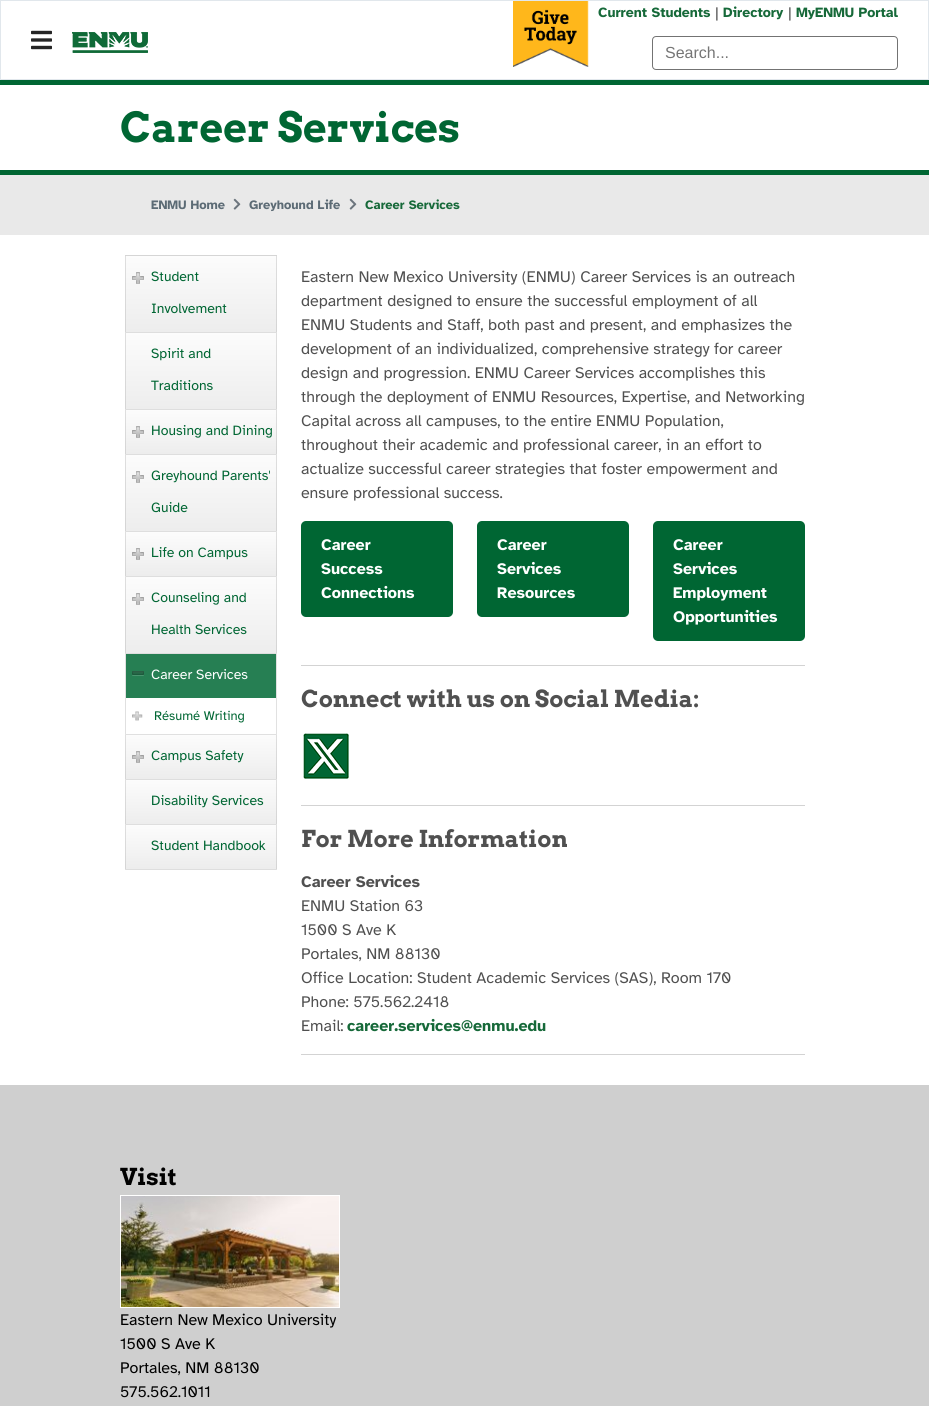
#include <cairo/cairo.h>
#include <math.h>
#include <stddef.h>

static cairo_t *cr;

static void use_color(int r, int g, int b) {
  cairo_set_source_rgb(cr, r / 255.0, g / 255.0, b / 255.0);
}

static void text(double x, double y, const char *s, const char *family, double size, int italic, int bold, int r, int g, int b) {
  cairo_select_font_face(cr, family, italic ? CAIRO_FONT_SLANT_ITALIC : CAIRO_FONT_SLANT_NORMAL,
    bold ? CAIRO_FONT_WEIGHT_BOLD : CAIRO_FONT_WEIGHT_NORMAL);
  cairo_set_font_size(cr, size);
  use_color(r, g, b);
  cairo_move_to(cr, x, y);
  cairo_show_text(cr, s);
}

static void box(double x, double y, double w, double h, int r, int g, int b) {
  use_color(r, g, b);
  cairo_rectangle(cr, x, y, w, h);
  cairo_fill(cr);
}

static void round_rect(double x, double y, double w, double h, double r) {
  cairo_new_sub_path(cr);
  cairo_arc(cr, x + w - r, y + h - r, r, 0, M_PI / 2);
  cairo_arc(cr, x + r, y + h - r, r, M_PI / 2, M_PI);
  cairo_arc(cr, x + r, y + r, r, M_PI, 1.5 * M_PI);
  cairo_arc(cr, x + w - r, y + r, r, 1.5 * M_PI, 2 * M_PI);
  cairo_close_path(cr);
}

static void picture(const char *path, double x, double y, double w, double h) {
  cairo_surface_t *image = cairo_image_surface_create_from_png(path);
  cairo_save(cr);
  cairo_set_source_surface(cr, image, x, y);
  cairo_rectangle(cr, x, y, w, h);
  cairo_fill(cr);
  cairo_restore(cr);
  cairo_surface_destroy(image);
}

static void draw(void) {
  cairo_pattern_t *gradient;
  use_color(255, 255, 255);
  cairo_paint(cr);
  cairo_rectangle(cr, 0.5, 0.5, 928, 79);
  use_color(225, 231, 236);
  cairo_set_line_width(cr, 1);
  cairo_stroke(cr);
  picture("img_01.png", 31, 30, 21, 20);
  picture("img_02.png", 72, 32, 76, 21);
  picture("img_03.png", 513, 1, 76, 66);
  round_rect(652.5, 36.5, 245, 33, 3.5);
  use_color(115, 115, 115);
  cairo_stroke(cr);
  box(0, 80, 929, 5, 0, 102, 51);
  box(0, 170, 929, 5, 0, 102, 51);
  box(0, 175, 929, 60, 233, 233, 233);
  picture("img_04.png", 233, 198, 8, 12);
  picture("img_04.png", 349, 198, 8, 12);
  gradient = cairo_pattern_create_linear(126, 256, 126, 180);
  cairo_pattern_add_color_stop_rgba(gradient, 0, 0.929, 0.929, 0.929, 1);
  cairo_pattern_add_color_stop_rgba(gradient, 1, 0.988, 0.988, 0.988, 1);
  cairo_set_source(cr, gradient);
  cairo_pattern_destroy(gradient);
  cairo_rectangle(cr, 125, 255, 152, 1);
  cairo_fill(cr);
  gradient = cairo_pattern_create_linear(126, 332, 126, 256);
  cairo_pattern_add_color_stop_rgba(gradient, 0, 0.929, 0.929, 0.929, 1);
  cairo_pattern_add_color_stop_rgba(gradient, 1, 0.988, 0.988, 0.988, 1);
  cairo_set_source(cr, gradient);
  cairo_pattern_destroy(gradient);
  cairo_rectangle(cr, 125, 256, 152, 76);
  cairo_fill(cr);
  gradient = cairo_pattern_create_linear(126, 408, 126, 332);
  cairo_pattern_add_color_stop_rgba(gradient, 0, 0.929, 0.929, 0.929, 1);
  cairo_pattern_add_color_stop_rgba(gradient, 1, 0.988, 0.988, 0.988, 1);
  cairo_set_source(cr, gradient);
  cairo_pattern_destroy(gradient);
  cairo_rectangle(cr, 125, 332, 152, 1);
  cairo_fill(cr);
  cairo_rectangle(cr, 125.5, 255.5, 151, 77);
  cairo_set_source_rgba(cr, 0.686, 0.686, 0.686, 0.38);
  cairo_stroke(cr);
  picture("img_05.png", 132, 272, 12, 12);
  gradient = cairo_pattern_create_linear(126, 409, 126, 333);
  cairo_pattern_add_color_stop_rgba(gradient, 0, 0.929, 0.929, 0.929, 1);
  cairo_pattern_add_color_stop_rgba(gradient, 1, 0.988, 0.988, 0.988, 1);
  cairo_set_source(cr, gradient);
  cairo_pattern_destroy(gradient);
  cairo_rectangle(cr, 125, 333, 152, 76);
  cairo_fill(cr);
  gradient = cairo_pattern_create_linear(126, 485, 126, 409);
  cairo_pattern_add_color_stop_rgba(gradient, 0, 0.929, 0.929, 0.929, 1);
  cairo_pattern_add_color_stop_rgba(gradient, 1, 0.988, 0.988, 0.988, 1);
  cairo_set_source(cr, gradient);
  cairo_pattern_destroy(gradient);
  cairo_rectangle(cr, 125, 409, 152, 1);
  cairo_fill(cr);
  cairo_set_source_rgba(cr, 0.686, 0.686, 0.686, 0.38);
  cairo_new_path(cr);
  cairo_move_to(cr, 277, 333);
  cairo_line_to(cr, 277, 410);
  cairo_line_to(cr, 276, 409);
  cairo_line_to(cr, 276, 333);
  cairo_close_path(cr);
  cairo_fill(cr);
  cairo_new_path(cr);
  cairo_move_to(cr, 277, 410);
  cairo_line_to(cr, 125, 410);
  cairo_line_to(cr, 126, 409);
  cairo_line_to(cr, 276, 409);
  cairo_close_path(cr);
  cairo_fill(cr);
  cairo_new_path(cr);
  cairo_move_to(cr, 125, 410);
  cairo_line_to(cr, 125, 333);
  cairo_line_to(cr, 126, 333);
  cairo_line_to(cr, 126, 409);
  cairo_close_path(cr);
  cairo_fill(cr);
  gradient = cairo_pattern_create_linear(126, 454, 126, 410);
  cairo_pattern_add_color_stop_rgba(gradient, 0, 0.929, 0.929, 0.929, 1);
  cairo_pattern_add_color_stop_rgba(gradient, 1, 0.988, 0.988, 0.988, 1);
  cairo_set_source(cr, gradient);
  cairo_pattern_destroy(gradient);
  cairo_rectangle(cr, 125, 410, 152, 44);
  cairo_fill(cr);
  gradient = cairo_pattern_create_linear(126, 498, 126, 454);
  cairo_pattern_add_color_stop_rgba(gradient, 0, 0.929, 0.929, 0.929, 1);
  cairo_pattern_add_color_stop_rgba(gradient, 1, 0.988, 0.988, 0.988, 1);
  cairo_set_source(cr, gradient);
  cairo_pattern_destroy(gradient);
  cairo_rectangle(cr, 125, 454, 152, 1);
  cairo_fill(cr);
  cairo_set_source_rgba(cr, 0.686, 0.686, 0.686, 0.38);
  cairo_new_path(cr);
  cairo_move_to(cr, 277, 410);
  cairo_line_to(cr, 277, 455);
  cairo_line_to(cr, 276, 454);
  cairo_line_to(cr, 276, 410);
  cairo_close_path(cr);
  cairo_fill(cr);
  cairo_new_path(cr);
  cairo_move_to(cr, 277, 455);
  cairo_line_to(cr, 125, 455);
  cairo_line_to(cr, 126, 454);
  cairo_line_to(cr, 276, 454);
  cairo_close_path(cr);
  cairo_fill(cr);
  cairo_new_path(cr);
  cairo_move_to(cr, 125, 455);
  cairo_line_to(cr, 125, 410);
  cairo_line_to(cr, 126, 410);
  cairo_line_to(cr, 126, 454);
  cairo_close_path(cr);
  cairo_fill(cr);
  picture("img_06.png", 132, 426, 12, 12);
  gradient = cairo_pattern_create_linear(126, 531, 126, 455);
  cairo_pattern_add_color_stop_rgba(gradient, 0, 0.929, 0.929, 0.929, 1);
  cairo_pattern_add_color_stop_rgba(gradient, 1, 0.988, 0.988, 0.988, 1);
  cairo_set_source(cr, gradient);
  cairo_pattern_destroy(gradient);
  cairo_rectangle(cr, 125, 455, 152, 76);
  cairo_fill(cr);
  gradient = cairo_pattern_create_linear(126, 607, 126, 531);
  cairo_pattern_add_color_stop_rgba(gradient, 0, 0.929, 0.929, 0.929, 1);
  cairo_pattern_add_color_stop_rgba(gradient, 1, 0.988, 0.988, 0.988, 1);
  cairo_set_source(cr, gradient);
  cairo_pattern_destroy(gradient);
  cairo_rectangle(cr, 125, 531, 152, 1);
  cairo_fill(cr);
  cairo_set_source_rgba(cr, 0.686, 0.686, 0.686, 0.38);
  cairo_new_path(cr);
  cairo_move_to(cr, 277, 455);
  cairo_line_to(cr, 277, 532);
  cairo_line_to(cr, 276, 531);
  cairo_line_to(cr, 276, 455);
  cairo_close_path(cr);
  cairo_fill(cr);
  cairo_new_path(cr);
  cairo_move_to(cr, 277, 532);
  cairo_line_to(cr, 125, 532);
  cairo_line_to(cr, 126, 531);
  cairo_line_to(cr, 276, 531);
  cairo_close_path(cr);
  cairo_fill(cr);
  cairo_new_path(cr);
  cairo_move_to(cr, 125, 532);
  cairo_line_to(cr, 125, 455);
  cairo_line_to(cr, 126, 455);
  cairo_line_to(cr, 126, 531);
  cairo_close_path(cr);
  cairo_fill(cr);
  picture("img_05.png", 132, 471, 12, 12);
  gradient = cairo_pattern_create_linear(126, 576, 126, 532);
  cairo_pattern_add_color_stop_rgba(gradient, 0, 0.929, 0.929, 0.929, 1);
  cairo_pattern_add_color_stop_rgba(gradient, 1, 0.988, 0.988, 0.988, 1);
  cairo_set_source(cr, gradient);
  cairo_pattern_destroy(gradient);
  cairo_rectangle(cr, 125, 532, 152, 44);
  cairo_fill(cr);
  gradient = cairo_pattern_create_linear(126, 620, 126, 576);
  cairo_pattern_add_color_stop_rgba(gradient, 0, 0.929, 0.929, 0.929, 1);
  cairo_pattern_add_color_stop_rgba(gradient, 1, 0.988, 0.988, 0.988, 1);
  cairo_set_source(cr, gradient);
  cairo_pattern_destroy(gradient);
  cairo_rectangle(cr, 125, 576, 152, 1);
  cairo_fill(cr);
  cairo_set_source_rgba(cr, 0.686, 0.686, 0.686, 0.38);
  cairo_new_path(cr);
  cairo_move_to(cr, 277, 532);
  cairo_line_to(cr, 277, 577);
  cairo_line_to(cr, 276, 576);
  cairo_line_to(cr, 276, 532);
  cairo_close_path(cr);
  cairo_fill(cr);
  cairo_new_path(cr);
  cairo_move_to(cr, 277, 577);
  cairo_line_to(cr, 125, 577);
  cairo_line_to(cr, 126, 576);
  cairo_line_to(cr, 276, 576);
  cairo_close_path(cr);
  cairo_fill(cr);
  cairo_new_path(cr);
  cairo_move_to(cr, 125, 577);
  cairo_line_to(cr, 125, 532);
  cairo_line_to(cr, 126, 532);
  cairo_line_to(cr, 126, 576);
  cairo_close_path(cr);
  cairo_fill(cr);
  picture("img_06.png", 132, 548, 12, 12);
  gradient = cairo_pattern_create_linear(126, 653, 126, 577);
  cairo_pattern_add_color_stop_rgba(gradient, 0, 0.929, 0.929, 0.929, 1);
  cairo_pattern_add_color_stop_rgba(gradient, 1, 0.988, 0.988, 0.988, 1);
  cairo_set_source(cr, gradient);
  cairo_pattern_destroy(gradient);
  cairo_rectangle(cr, 125, 577, 152, 76);
  cairo_fill(cr);
  gradient = cairo_pattern_create_linear(126, 729, 126, 653);
  cairo_pattern_add_color_stop_rgba(gradient, 0, 0.929, 0.929, 0.929, 1);
  cairo_pattern_add_color_stop_rgba(gradient, 1, 0.988, 0.988, 0.988, 1);
  cairo_set_source(cr, gradient);
  cairo_pattern_destroy(gradient);
  cairo_rectangle(cr, 125, 653, 152, 1);
  cairo_fill(cr);
  cairo_set_source_rgba(cr, 0.686, 0.686, 0.686, 0.38);
  cairo_new_path(cr);
  cairo_move_to(cr, 277, 577);
  cairo_line_to(cr, 277, 654);
  cairo_line_to(cr, 276, 653);
  cairo_line_to(cr, 276, 577);
  cairo_close_path(cr);
  cairo_fill(cr);
  cairo_new_path(cr);
  cairo_move_to(cr, 277, 654);
  cairo_line_to(cr, 125, 654);
  cairo_line_to(cr, 126, 653);
  cairo_line_to(cr, 276, 653);
  cairo_close_path(cr);
  cairo_fill(cr);
  cairo_new_path(cr);
  cairo_move_to(cr, 125, 654);
  cairo_line_to(cr, 125, 577);
  cairo_line_to(cr, 126, 577);
  cairo_line_to(cr, 126, 653);
  cairo_close_path(cr);
  cairo_fill(cr);
  picture("img_05.png", 132, 593, 12, 12);
  box(126, 654, 150, 44, 38, 127, 83);
  use_color(225, 225, 225);
  cairo_new_path(cr);
  cairo_move_to(cr, 277, 654);
  cairo_line_to(cr, 277, 735);
  cairo_line_to(cr, 276, 734);
  cairo_line_to(cr, 276, 654);
  cairo_close_path(cr);
  cairo_fill(cr);
  cairo_set_source_rgba(cr, 0.686, 0.686, 0.686, 0.38);
  cairo_new_path(cr);
  cairo_move_to(cr, 277, 735);
  cairo_line_to(cr, 125, 735);
  cairo_line_to(cr, 126, 734);
  cairo_line_to(cr, 276, 734);
  cairo_close_path(cr);
  cairo_fill(cr);
  cairo_new_path(cr);
  cairo_move_to(cr, 125, 735);
  cairo_line_to(cr, 125, 654);
  cairo_line_to(cr, 126, 654);
  cairo_line_to(cr, 126, 734);
  cairo_close_path(cr);
  cairo_fill(cr);
  picture("img_07.png", 132, 671, 12, 5);
  picture("img_08.png", 132, 711, 11, 10);
  gradient = cairo_pattern_create_linear(126, 779, 126, 735);
  cairo_pattern_add_color_stop_rgba(gradient, 0, 0.929, 0.929, 0.929, 1);
  cairo_pattern_add_color_stop_rgba(gradient, 1, 0.988, 0.988, 0.988, 1);
  cairo_set_source(cr, gradient);
  cairo_pattern_destroy(gradient);
  cairo_rectangle(cr, 125, 735, 152, 44);
  cairo_fill(cr);
  gradient = cairo_pattern_create_linear(126, 823, 126, 779);
  cairo_pattern_add_color_stop_rgba(gradient, 0, 0.929, 0.929, 0.929, 1);
  cairo_pattern_add_color_stop_rgba(gradient, 1, 0.988, 0.988, 0.988, 1);
  cairo_set_source(cr, gradient);
  cairo_pattern_destroy(gradient);
  cairo_rectangle(cr, 125, 779, 152, 1);
  cairo_fill(cr);
  cairo_set_source_rgba(cr, 0.686, 0.686, 0.686, 0.38);
  cairo_new_path(cr);
  cairo_move_to(cr, 277, 735);
  cairo_line_to(cr, 277, 780);
  cairo_line_to(cr, 276, 779);
  cairo_line_to(cr, 276, 735);
  cairo_close_path(cr);
  cairo_fill(cr);
  cairo_new_path(cr);
  cairo_move_to(cr, 277, 780);
  cairo_line_to(cr, 125, 780);
  cairo_line_to(cr, 126, 779);
  cairo_line_to(cr, 276, 779);
  cairo_close_path(cr);
  cairo_fill(cr);
  cairo_new_path(cr);
  cairo_move_to(cr, 125, 780);
  cairo_line_to(cr, 125, 735);
  cairo_line_to(cr, 126, 735);
  cairo_line_to(cr, 126, 779);
  cairo_close_path(cr);
  cairo_fill(cr);
  picture("img_06.png", 132, 751, 12, 12);
  gradient = cairo_pattern_create_linear(126, 824, 126, 780);
  cairo_pattern_add_color_stop_rgba(gradient, 0, 0.929, 0.929, 0.929, 1);
  cairo_pattern_add_color_stop_rgba(gradient, 1, 0.988, 0.988, 0.988, 1);
  cairo_set_source(cr, gradient);
  cairo_pattern_destroy(gradient);
  cairo_rectangle(cr, 125, 780, 152, 44);
  cairo_fill(cr);
  gradient = cairo_pattern_create_linear(126, 868, 126, 824);
  cairo_pattern_add_color_stop_rgba(gradient, 0, 0.929, 0.929, 0.929, 1);
  cairo_pattern_add_color_stop_rgba(gradient, 1, 0.988, 0.988, 0.988, 1);
  cairo_set_source(cr, gradient);
  cairo_pattern_destroy(gradient);
  cairo_rectangle(cr, 125, 824, 152, 1);
  cairo_fill(cr);
  cairo_set_source_rgba(cr, 0.686, 0.686, 0.686, 0.38);
  cairo_new_path(cr);
  cairo_move_to(cr, 277, 780);
  cairo_line_to(cr, 277, 825);
  cairo_line_to(cr, 276, 824);
  cairo_line_to(cr, 276, 780);
  cairo_close_path(cr);
  cairo_fill(cr);
  cairo_new_path(cr);
  cairo_move_to(cr, 277, 825);
  cairo_line_to(cr, 125, 825);
  cairo_line_to(cr, 126, 824);
  cairo_line_to(cr, 276, 824);
  cairo_close_path(cr);
  cairo_fill(cr);
  cairo_new_path(cr);
  cairo_move_to(cr, 125, 825);
  cairo_line_to(cr, 125, 780);
  cairo_line_to(cr, 126, 780);
  cairo_line_to(cr, 126, 824);
  cairo_close_path(cr);
  cairo_fill(cr);
  gradient = cairo_pattern_create_linear(126, 869, 126, 825);
  cairo_pattern_add_color_stop_rgba(gradient, 0, 0.929, 0.929, 0.929, 1);
  cairo_pattern_add_color_stop_rgba(gradient, 1, 0.988, 0.988, 0.988, 1);
  cairo_set_source(cr, gradient);
  cairo_pattern_destroy(gradient);
  cairo_rectangle(cr, 125, 825, 152, 44);
  cairo_fill(cr);
  gradient = cairo_pattern_create_linear(126, 913, 126, 869);
  cairo_pattern_add_color_stop_rgba(gradient, 0, 0.929, 0.929, 0.929, 1);
  cairo_pattern_add_color_stop_rgba(gradient, 1, 0.988, 0.988, 0.988, 1);
  cairo_set_source(cr, gradient);
  cairo_pattern_destroy(gradient);
  cairo_rectangle(cr, 125, 869, 152, 1);
  cairo_fill(cr);
  cairo_set_source_rgba(cr, 0.686, 0.686, 0.686, 0.38);
  cairo_new_path(cr);
  cairo_move_to(cr, 277, 825);
  cairo_line_to(cr, 277, 870);
  cairo_line_to(cr, 276, 869);
  cairo_line_to(cr, 276, 825);
  cairo_close_path(cr);
  cairo_fill(cr);
  cairo_new_path(cr);
  cairo_move_to(cr, 277, 870);
  cairo_line_to(cr, 125, 870);
  cairo_line_to(cr, 126, 869);
  cairo_line_to(cr, 276, 869);
  cairo_close_path(cr);
  cairo_fill(cr);
  cairo_new_path(cr);
  cairo_move_to(cr, 125, 870);
  cairo_line_to(cr, 125, 825);
  cairo_line_to(cr, 126, 825);
  cairo_line_to(cr, 126, 869);
  cairo_close_path(cr);
  cairo_fill(cr);
  use_color(0, 102, 51);
  round_rect(301, 521, 152, 96, 5);
  cairo_fill(cr);
  round_rect(477, 521, 152, 96, 5);
  cairo_fill(cr);
  round_rect(653, 521, 152, 120, 5);
  cairo_fill(cr);
  box(301, 665, 504, 1, 211, 211, 211);
  picture("img_09.png", 303, 733, 46, 46);
  box(301, 805, 504, 1, 211, 211, 211);
  box(301, 1054, 504, 1, 211, 211, 211);
  box(0, 1085, 929, 321, 207, 207, 207);
  cairo_rectangle(cr, 120.5, 1195.5, 219, 112);
  use_color(255, 255, 255);
  cairo_stroke(cr);
  picture("img_10.png", 121, 1196, 218, 111);
  text(598, 17, "Current Students", "Atkinson Hyperlegible", 14, 0, 1, 22, 105, 57);
  text(715, 18, "|", "Atkinson Hyperlegible", 16, 0, 0, 80, 80, 80);
  text(723, 17, "Directory", "Atkinson Hyperlegible", 14, 0, 1, 22, 105, 57);
  text(788, 18, "|", "Atkinson Hyperlegible", 16, 0, 0, 80, 80, 80);
  text(796, 17, "MyENMU Portal", "Atkinson Hyperlegible", 14, 0, 1, 22, 105, 57);
  text(665, 58, "Search...", "Liberation Sans", 16, 0, 0, 117, 117, 117);
  text(120, 142, "Career Services", "Arvo", 41.25, 0, 1, 0, 102, 51);
  text(151, 209, "ENMU Home", "Atkinson Hyperlegible", 12.75, 0, 1, 92, 107, 117);
  text(249, 209, "Greyhound Life", "Atkinson Hyperlegible", 12.75, 0, 1, 92, 107, 117);
  text(365, 209, "Career Services", "Atkinson Hyperlegible", 12.75, 0, 1, 22, 105, 57);
  text(151, 281, "Student", "Atkinson Hyperlegible", 14, 0, 0, 0, 102, 51);
  text(151, 313, "Involvement", "Atkinson Hyperlegible", 14, 0, 0, 0, 102, 51);
  text(151, 358, "Spirit and", "Atkinson Hyperlegible", 14, 0, 0, 0, 102, 51);
  text(151, 390, "Traditions", "Atkinson Hyperlegible", 14, 0, 0, 0, 102, 51);
  text(151, 435, "Housing and Dining", "Atkinson Hyperlegible", 14, 0, 0, 0, 102, 51);
  text(151, 480, "Greyhound Parents'", "Atkinson Hyperlegible", 14, 0, 0, 0, 102, 51);
  text(151, 512, "Guide", "Atkinson Hyperlegible", 14, 0, 0, 0, 102, 51);
  text(151, 557, "Life on Campus", "Atkinson Hyperlegible", 14, 0, 0, 0, 102, 51);
  text(151, 602, "Counseling and", "Atkinson Hyperlegible", 14, 0, 0, 0, 102, 51);
  text(151, 634, "Health Services", "Atkinson Hyperlegible", 14, 0, 0, 0, 102, 51);
  text(151, 679, "Career Services", "Atkinson Hyperlegible", 14, 0, 0, 255, 255, 255);
  text(154, 720, "Résumé Writing", "Atkinson Hyperlegible", 13, 0, 0, 0, 102, 51);
  text(151, 760, "Campus Safety", "Atkinson Hyperlegible", 14, 0, 0, 0, 102, 51);
  text(151, 805, "Disability Services", "Atkinson Hyperlegible", 14, 0, 0, 0, 102, 51);
  text(151, 850, "Student Handbook", "Atkinson Hyperlegible", 14, 0, 0, 0, 102, 51);
  text(301, 282, "Eastern New Mexico University (ENMU) Career Services is an outreach", "Atkinson Hyperlegible", 16, 0, 0, 80, 80, 80);
  text(301, 306, "department designed to ensure the successful employment of all", "Atkinson Hyperlegible", 16, 0, 0, 80, 80, 80);
  text(301, 330, "ENMU Students and Staff, both past and present, and emphasizes the", "Atkinson Hyperlegible", 16, 0, 0, 80, 80, 80);
  text(301, 354, "development of an individualized, comprehensive strategy for career", "Atkinson Hyperlegible", 16, 0, 0, 80, 80, 80);
  text(301, 378, "design and progression. ENMU Career Services accomplishes this", "Atkinson Hyperlegible", 16, 0, 0, 80, 80, 80);
  text(301, 402, "through the deployment of ENMU Resources, Expertise, and Networking", "Atkinson Hyperlegible", 16, 0, 0, 80, 80, 80);
  text(301, 426, "Capital across all campuses, to the entire ENMU Population,", "Atkinson Hyperlegible", 16, 0, 0, 80, 80, 80);
  text(301, 450, "throughout their academic and professional career, in an effort to", "Atkinson Hyperlegible", 16, 0, 0, 80, 80, 80);
  text(301, 474, "actualize successful career strategies that foster empowerment and", "Atkinson Hyperlegible", 16, 0, 0, 80, 80, 80);
  text(301, 498, "ensure professional success.", "Atkinson Hyperlegible", 16, 0, 0, 80, 80, 80);
  text(321, 550, "Career", "Atkinson Hyperlegible", 16, 0, 1, 255, 255, 255);
  text(321, 574, "Success", "Atkinson Hyperlegible", 16, 0, 1, 255, 255, 255);
  text(321, 598, "Connections", "Atkinson Hyperlegible", 16, 0, 1, 255, 255, 255);
  text(497, 550, "Career", "Atkinson Hyperlegible", 16, 0, 1, 255, 255, 255);
  text(497, 574, "Services", "Atkinson Hyperlegible", 16, 0, 1, 255, 255, 255);
  text(497, 598, "Resources", "Atkinson Hyperlegible", 16, 0, 1, 255, 255, 255);
  text(673, 550, "Career", "Atkinson Hyperlegible", 16, 0, 1, 255, 255, 255);
  text(673, 574, "Services", "Atkinson Hyperlegible", 16, 0, 1, 255, 255, 255);
  text(673, 598, "Employment", "Atkinson Hyperlegible", 16, 0, 1, 255, 255, 255);
  text(673, 622, "Opportunities", "Atkinson Hyperlegible", 16, 0, 1, 255, 255, 255);
  text(301, 707, "Connect with us on Social Media:", "Arvo", 23.25, 0, 1, 80, 80, 80);
  text(301, 847, "For More Information", "Arvo", 23.25, 0, 1, 80, 80, 80);
  text(301, 887, "Career Services", "Atkinson Hyperlegible", 16, 0, 1, 80, 80, 80);
  text(301, 911, "ENMU Station 63", "Atkinson Hyperlegible", 16, 0, 0, 80, 80, 80);
  text(301, 935, "1500 S Ave K", "Atkinson Hyperlegible", 16, 0, 0, 80, 80, 80);
  text(301, 959, "Portales, NM 88130", "Atkinson Hyperlegible", 16, 0, 0, 80, 80, 80);
  text(301, 983, "Office Location: Student Academic Services (SAS), Room 170", "Atkinson Hyperlegible", 16, 0, 0, 80, 80, 80);
  text(301, 1007, "Phone: 575.562.2418", "Atkinson Hyperlegible", 16, 0, 0, 80, 80, 80);
  text(301, 1031, "Email:", "Atkinson Hyperlegible", 16, 0, 0, 80, 80, 80);
  text(347, 1031, "career.services@enmu.edu", "Atkinson Hyperlegible", 16, 0, 1, 22, 105, 57);
  text(120, 1185, "Visit", "Arvo", 23.25, 0, 1, 0, 0, 0);
  text(120, 1325, "Eastern New Mexico University", "Atkinson Hyperlegible", 16, 0, 0, 0, 0, 0);
  text(120, 1349, "1500 S Ave K", "Atkinson Hyperlegible", 16, 0, 0, 0, 0, 0);
  text(120, 1373, "Portales, NM 88130", "Atkinson Hyperlegible", 16, 0, 0, 0, 0, 0);
  text(120, 1397, "575.562.1011", "Atkinson Hyperlegible", 16, 0, 0, 0, 0, 0);
}

int main(void) {
  cairo_surface_t *surface = cairo_image_surface_create(CAIRO_FORMAT_RGB24, 929, 1406);
  cr = cairo_create(surface);
  cairo_font_options_t *options = cairo_font_options_create();
  cairo_font_options_set_hint_metrics(options, CAIRO_HINT_METRICS_OFF);
  cairo_font_options_set_hint_style(options, CAIRO_HINT_STYLE_NONE);
  cairo_set_font_options(cr, options);
  cairo_set_miter_limit(cr, 4);
  draw();
  cairo_surface_write_to_png(surface, "out.png");
  cairo_font_options_destroy(options);
  cairo_destroy(cr);
  cairo_surface_destroy(surface);
  return 0;
}
